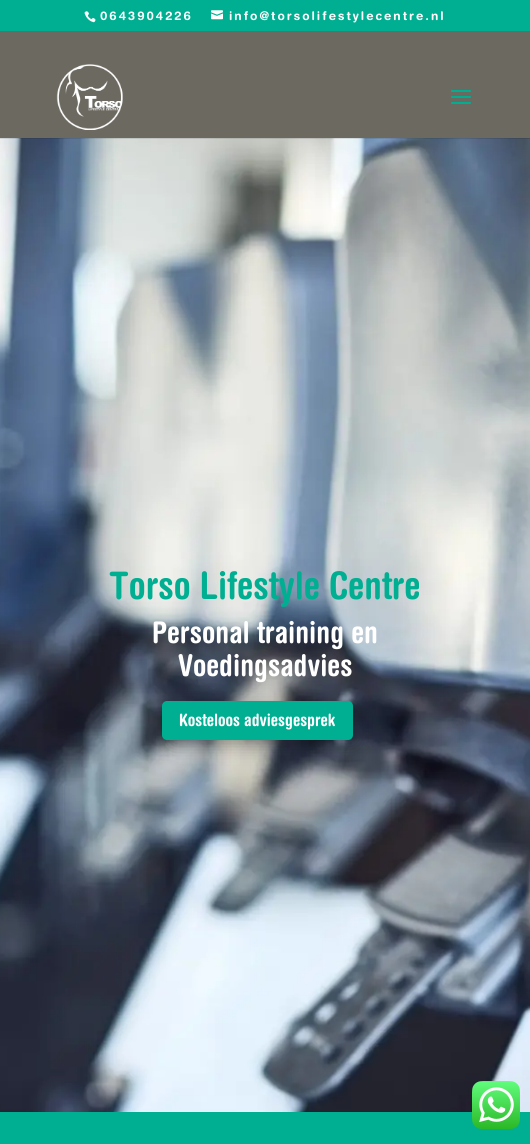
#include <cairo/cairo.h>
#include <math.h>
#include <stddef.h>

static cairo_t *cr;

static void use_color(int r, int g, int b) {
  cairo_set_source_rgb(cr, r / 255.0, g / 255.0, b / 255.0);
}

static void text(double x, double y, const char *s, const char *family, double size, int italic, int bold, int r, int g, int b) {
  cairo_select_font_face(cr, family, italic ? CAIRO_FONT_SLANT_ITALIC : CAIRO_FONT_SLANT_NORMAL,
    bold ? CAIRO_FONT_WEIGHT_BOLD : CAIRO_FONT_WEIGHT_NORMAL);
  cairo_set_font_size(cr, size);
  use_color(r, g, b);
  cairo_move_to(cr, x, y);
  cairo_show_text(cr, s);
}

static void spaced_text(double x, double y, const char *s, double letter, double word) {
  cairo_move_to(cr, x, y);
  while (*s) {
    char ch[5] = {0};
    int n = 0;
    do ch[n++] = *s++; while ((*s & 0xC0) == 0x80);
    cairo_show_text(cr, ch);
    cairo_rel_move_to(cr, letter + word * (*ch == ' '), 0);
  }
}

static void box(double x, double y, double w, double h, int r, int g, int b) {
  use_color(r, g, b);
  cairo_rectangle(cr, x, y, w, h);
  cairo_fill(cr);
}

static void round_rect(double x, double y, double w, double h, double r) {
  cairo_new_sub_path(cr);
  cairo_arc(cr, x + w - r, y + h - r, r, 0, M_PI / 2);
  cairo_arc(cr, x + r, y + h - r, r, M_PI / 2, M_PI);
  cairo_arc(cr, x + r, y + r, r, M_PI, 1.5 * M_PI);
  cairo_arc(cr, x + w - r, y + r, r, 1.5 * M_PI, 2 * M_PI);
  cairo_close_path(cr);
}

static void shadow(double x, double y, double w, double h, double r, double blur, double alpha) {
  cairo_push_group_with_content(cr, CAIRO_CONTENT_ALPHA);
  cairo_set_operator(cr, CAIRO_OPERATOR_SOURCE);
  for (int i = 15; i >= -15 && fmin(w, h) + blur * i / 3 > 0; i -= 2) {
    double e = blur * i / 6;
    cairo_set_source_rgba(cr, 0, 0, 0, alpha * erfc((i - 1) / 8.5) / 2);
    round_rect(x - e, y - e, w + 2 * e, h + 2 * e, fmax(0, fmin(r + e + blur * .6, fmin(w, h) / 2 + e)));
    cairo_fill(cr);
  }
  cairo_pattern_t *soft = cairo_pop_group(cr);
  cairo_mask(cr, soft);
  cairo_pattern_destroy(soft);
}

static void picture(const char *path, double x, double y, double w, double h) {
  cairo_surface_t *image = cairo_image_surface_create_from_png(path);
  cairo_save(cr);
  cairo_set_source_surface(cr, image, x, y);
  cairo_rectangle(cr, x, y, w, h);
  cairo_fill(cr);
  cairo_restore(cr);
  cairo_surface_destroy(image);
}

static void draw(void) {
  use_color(108, 105, 96);
  cairo_paint(cr);
  box(0, 0, 530, 31, 0, 175, 146);
  picture("img_01.png", 84, 11, 12, 12);
  picture("img_02.png", 211, 10, 12, 10);
  picture("img_05.png", 0, 138, 530, 974);
  cairo_set_source_rgba(cr, 0, 0, 0, 0.1);
  cairo_rectangle(cr, 0, 138, 530, 1);
  cairo_fill(cr);
  picture("img_03.png", 56, 64, 67, 66);
  picture("img_04.png", 451, 90, 20, 14);
  use_color(0, 0, 0);
  shadow(168, 707, 191, 39, 5, 9, 0.3);
  use_color(0, 175, 146);
  round_rect(162, 701, 191, 39, 5);
  cairo_fill(cr);
  box(0, 1112, 530, 32, 0, 175, 146);
  picture("img_06.png", 472, 1081, 48, 48);
  cairo_select_font_face(cr, "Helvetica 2", CAIRO_FONT_SLANT_NORMAL, CAIRO_FONT_WEIGHT_BOLD);
  cairo_set_font_size(cr, 12);
  use_color(255, 255, 255);
  spaced_text(100, 20, "0643904226", 2, 0);
  spaced_text(229, 20, "info@torsolifestylecentre.nl", 2, 0);
  text(109, 599, "Torso Lifestyle Centre", "Helvetica", 38, 0, 1, 0, 175, 146);
  text(152, 643, "Personal training en", "Helvetica", 30, 0, 1, 255, 255, 255);
  text(178, 676, "Voedingsadvies", "Helvetica", 30, 0, 1, 255, 255, 255);
  text(179, 726, "Kosteloos adviesgesprek", "Helvetica", 17, 0, 1, 255, 255, 255);
}

int main(void) {
  cairo_surface_t *surface = cairo_image_surface_create(CAIRO_FORMAT_RGB24, 530, 1144);
  cr = cairo_create(surface);
  cairo_font_options_t *options = cairo_font_options_create();
  cairo_font_options_set_hint_metrics(options, CAIRO_HINT_METRICS_OFF);
  cairo_font_options_set_hint_style(options, CAIRO_HINT_STYLE_NONE);
  cairo_set_font_options(cr, options);
  cairo_set_miter_limit(cr, 4);
  draw();
  cairo_surface_write_to_png(surface, "out.png");
  cairo_font_options_destroy(options);
  cairo_destroy(cr);
  cairo_surface_destroy(surface);
  return 0;
}
